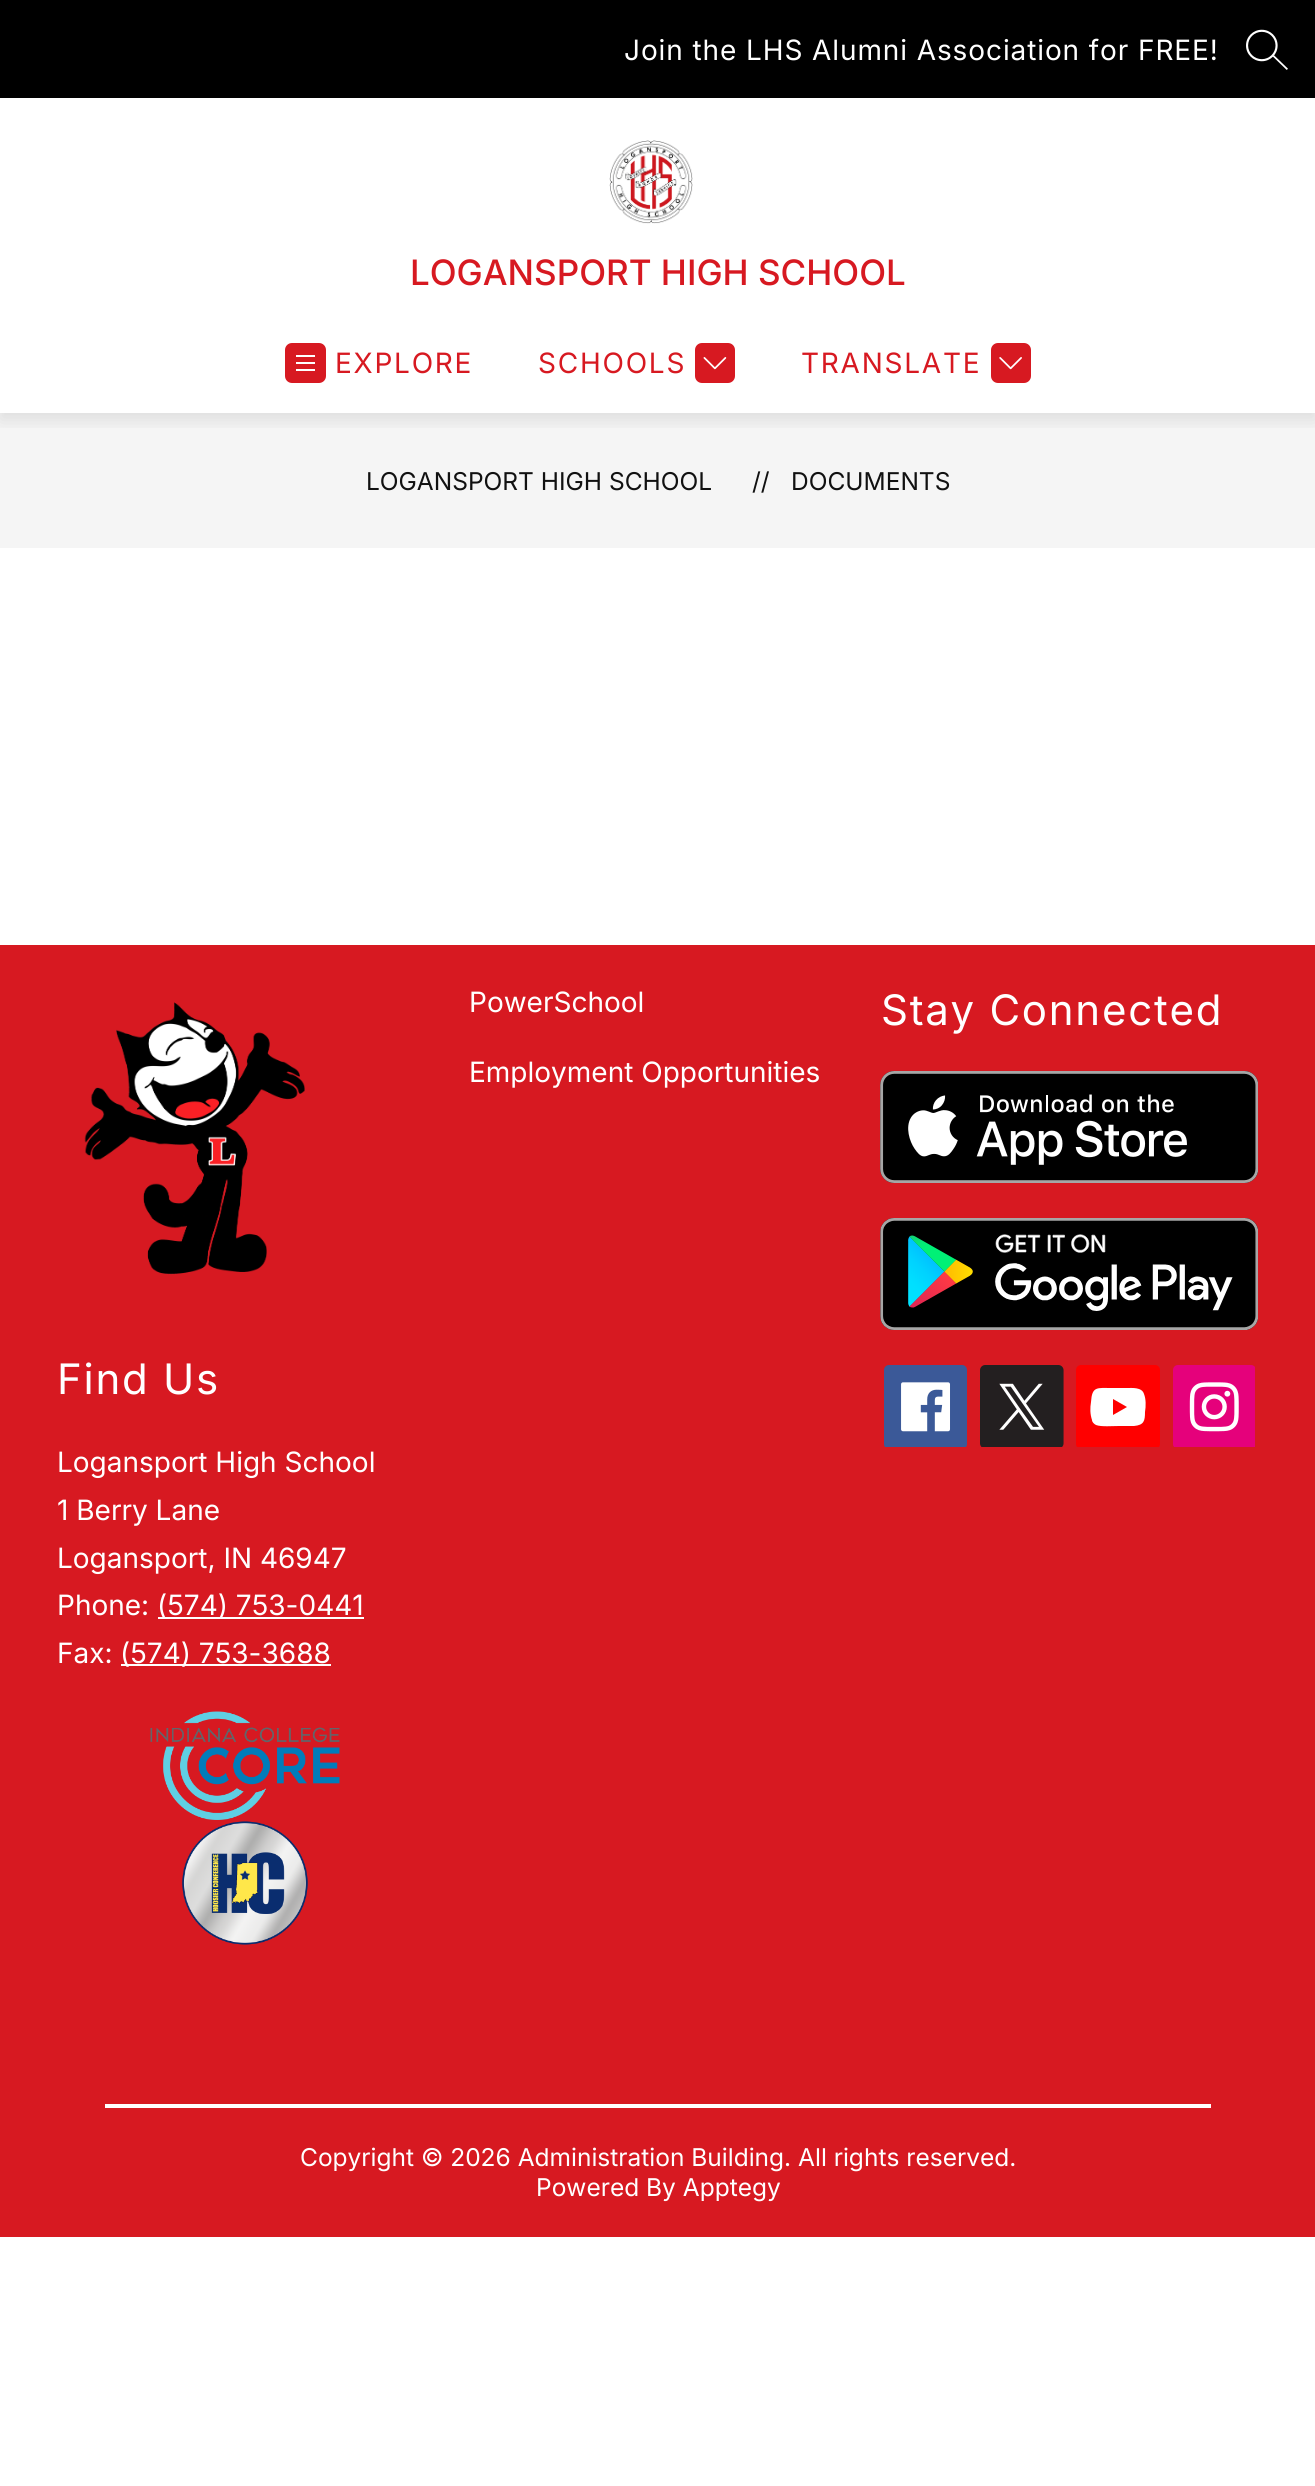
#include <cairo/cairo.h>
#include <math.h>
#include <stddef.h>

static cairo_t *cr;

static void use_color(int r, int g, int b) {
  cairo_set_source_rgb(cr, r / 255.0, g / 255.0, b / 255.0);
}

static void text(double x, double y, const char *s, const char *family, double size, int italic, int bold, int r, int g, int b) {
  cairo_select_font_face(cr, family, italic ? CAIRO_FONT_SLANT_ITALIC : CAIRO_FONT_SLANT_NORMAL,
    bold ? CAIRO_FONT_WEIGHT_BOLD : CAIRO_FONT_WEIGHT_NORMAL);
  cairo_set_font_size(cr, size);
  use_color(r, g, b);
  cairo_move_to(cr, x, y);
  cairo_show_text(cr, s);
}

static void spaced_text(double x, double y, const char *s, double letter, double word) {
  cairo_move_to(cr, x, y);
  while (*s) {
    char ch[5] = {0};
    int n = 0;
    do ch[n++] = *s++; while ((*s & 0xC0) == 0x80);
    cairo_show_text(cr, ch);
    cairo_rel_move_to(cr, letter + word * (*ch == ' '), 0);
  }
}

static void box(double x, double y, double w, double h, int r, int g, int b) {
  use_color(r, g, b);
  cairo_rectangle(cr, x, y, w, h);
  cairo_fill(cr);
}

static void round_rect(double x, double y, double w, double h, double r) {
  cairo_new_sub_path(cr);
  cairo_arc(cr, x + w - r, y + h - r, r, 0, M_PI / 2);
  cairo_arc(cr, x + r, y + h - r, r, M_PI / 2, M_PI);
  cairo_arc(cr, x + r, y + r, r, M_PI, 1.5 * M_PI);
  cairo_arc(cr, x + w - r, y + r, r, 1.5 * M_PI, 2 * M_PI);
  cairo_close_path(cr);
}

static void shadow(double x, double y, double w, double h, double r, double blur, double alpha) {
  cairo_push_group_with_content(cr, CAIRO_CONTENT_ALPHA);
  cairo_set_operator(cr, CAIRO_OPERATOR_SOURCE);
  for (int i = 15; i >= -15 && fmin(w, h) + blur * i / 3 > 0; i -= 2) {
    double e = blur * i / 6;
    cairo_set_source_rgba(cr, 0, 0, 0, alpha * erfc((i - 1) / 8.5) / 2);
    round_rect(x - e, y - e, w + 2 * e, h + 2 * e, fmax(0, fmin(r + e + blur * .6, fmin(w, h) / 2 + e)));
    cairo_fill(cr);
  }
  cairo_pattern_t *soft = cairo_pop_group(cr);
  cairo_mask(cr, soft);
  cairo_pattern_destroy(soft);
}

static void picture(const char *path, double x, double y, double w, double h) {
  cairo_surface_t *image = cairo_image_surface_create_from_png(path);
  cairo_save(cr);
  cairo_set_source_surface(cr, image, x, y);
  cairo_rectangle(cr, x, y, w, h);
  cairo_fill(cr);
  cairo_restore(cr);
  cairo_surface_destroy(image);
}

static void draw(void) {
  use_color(255, 255, 255);
  cairo_paint(cr);
  box(0, 413, 1315, 135, 245, 245, 245);
  cairo_save(cr);
  cairo_rectangle(cr, 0, 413, 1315, 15);
  cairo_clip(cr);
  use_color(0, 0, 0);
  shadow(0, 7, 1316, 413, 0, 9, 0.1);
  cairo_restore(cr);
  box(0, 0, 1315, 98, 0, 0, 0);
  picture("img_01.png", 1246, 29, 42, 41);
  picture("img_02.png", 609, 140, 84, 84);
  use_color(215, 25, 33);
  round_rect(285, 343, 41, 40, 7);
  cairo_fill(cr);
  use_color(255, 255, 255);
  cairo_set_fill_rule(cr, CAIRO_FILL_RULE_EVEN_ODD);
  cairo_new_path(cr);
  cairo_move_to(cr, 296, 355);
  cairo_line_to(cr, 315, 355);
  cairo_line_to(cr, 315, 357);
  cairo_line_to(cr, 296, 357);
  cairo_close_path(cr);
  cairo_move_to(cr, 296, 362);
  cairo_line_to(cr, 315, 362);
  cairo_line_to(cr, 315, 364);
  cairo_line_to(cr, 296, 364);
  cairo_close_path(cr);
  cairo_move_to(cr, 315, 369);
  cairo_line_to(cr, 296, 369);
  cairo_line_to(cr, 296, 371);
  cairo_line_to(cr, 315, 371);
  cairo_close_path(cr);
  cairo_fill(cr);
  picture("img_03.png", 695, 343, 40, 40);
  picture("img_04.png", 991, 343, 40, 40);
  box(0, 945, 1315, 1292, 215, 25, 33);
  picture("img_05.png", 880, 1071, 378, 112);
  picture("img_06.png", 880, 1218, 378, 112);
  picture("img_07.png", 884, 1365, 83, 82);
  picture("img_08.png", 980, 1365, 84, 82);
  cairo_save(cr);
  cairo_set_fill_rule(cr, CAIRO_FILL_RULE_WINDING);
  cairo_rectangle(cr, 1076, 1365, 84, 82);
  cairo_clip(cr);
  use_color(255, 0, 0);
  round_rect(1076, 1365, 84, 84, 5);
  cairo_fill(cr);
  cairo_restore(cr);
  use_color(255, 255, 255);
  cairo_set_fill_rule(cr, CAIRO_FILL_RULE_WINDING);
  cairo_new_path(cr);
  cairo_move_to(cr, 1144, 1394);
  cairo_curve_to(cr, 1142, 1387, 1132, 1388, 1127, 1388);
  cairo_line_to(cr, 1112, 1388);
  cairo_curve_to(cr, 1097, 1388, 1092, 1386, 1091, 1402);
  cairo_curve_to(cr, 1090, 1408, 1090, 1414, 1092, 1420);
  cairo_curve_to(cr, 1092, 1422, 1094, 1424, 1096, 1425);
  cairo_curve_to(cr, 1101, 1427, 1113, 1426, 1119, 1426);
  cairo_line_to(cr, 1134, 1426);
  cairo_curve_to(cr, 1144, 1425, 1145, 1421, 1145, 1412);
  cairo_curve_to(cr, 1146, 1406, 1146, 1399, 1144, 1394);
  cairo_close_path(cr);
  cairo_move_to(cr, 1113, 1415);
  cairo_line_to(cr, 1113, 1399);
  cairo_line_to(cr, 1127, 1407);
  cairo_close_path(cr);
  cairo_fill(cr);
  picture("img_09.png", 1173, 1365, 82, 82);
  picture("img_10.png", 84, 1002, 221, 273);
  box(158, 1617, 206, 2, 255, 255, 255);
  box(121, 1664, 210, 2, 255, 255, 255);
  picture("img_11.png", 150, 1711, 190, 109);
  picture("img_12.png", 182, 1821, 126, 124);
  box(105, 2104, 1106, 4, 255, 255, 255);
  cairo_select_font_face(cr, "Inter", CAIRO_FONT_SLANT_NORMAL, CAIRO_FONT_WEIGHT_NORMAL);
  cairo_set_font_size(cr, 28);
  spaced_text(624, 60, "Join the LHS Alumni Association for FREE!", 0.9, 0);
  text(410, 285, "LOGANSPORT HIGH SCHOOL", "Inter Medium", 35, 0, 0, 215, 25, 33);
  cairo_select_font_face(cr, "Inter", CAIRO_FONT_SLANT_NORMAL, CAIRO_FONT_WEIGHT_NORMAL);
  cairo_set_font_size(cr, 28);
  spaced_text(335, 373, "EXPLORE", 1.75, 0);
  spaced_text(538, 373, "SCHOOLS", 1.75, 0);
  spaced_text(801, 373, "TRANSLATE", 1.75, 0);
  text(366, 490, "LOGANSPORT HIGH SCHOOL", "Inter", 24.5, 0, 0, 17, 17, 17);
  text(752, 490, "//", "Inter", 24.5, 0, 0, 17, 17, 17);
  text(791, 490, "DOCUMENTS", "Inter", 24.5, 0, 0, 17, 17, 17);
  text(469, 1012, "PowerSchool", "Inter", 28, 0, 0, 255, 255, 255);
  text(469, 1082, "Employment Opportunities", "Inter", 28, 0, 0, 255, 255, 255);
  cairo_set_font_size(cr, 42);
  spaced_text(881, 1025, "Stay Connected", 1.75, 0);
  spaced_text(57, 1394, "Find Us", 1.75, 0);
  text(57, 1472, "Logansport High School", "Inter", 28, 0, 0, 255, 255, 255);
  text(57, 1520, "1 Berry Lane", "Inter", 28, 0, 0, 255, 255, 255);
  text(57, 1568, "Logansport, IN 46947", "Inter", 28, 0, 0, 255, 255, 255);
  text(57, 1615, "Phone:", "Inter", 28, 0, 0, 255, 255, 255);
  text(157, 1615, "(574) 753-0441", "Inter", 28, 0, 0, 255, 255, 255);
  text(57, 1663, "Fax:", "Inter", 28, 0, 0, 255, 255, 255);
  text(120, 1663, "(574) 753-3688", "Inter", 28, 0, 0, 255, 255, 255);
  text(300, 2166, "Copyright © 2026 Administration Building. All rights reserved.", "Inter", 24.5, 0, 0, 255, 255, 255);
  text(536, 2196, "Powered By Apptegy", "Inter", 24.5, 0, 0, 255, 255, 255);
}

int main(void) {
  cairo_surface_t *surface = cairo_image_surface_create(CAIRO_FORMAT_RGB24, 1315, 2486);
  cr = cairo_create(surface);
  cairo_font_options_t *options = cairo_font_options_create();
  cairo_font_options_set_hint_metrics(options, CAIRO_HINT_METRICS_OFF);
  cairo_font_options_set_hint_style(options, CAIRO_HINT_STYLE_NONE);
  cairo_set_font_options(cr, options);
  cairo_set_miter_limit(cr, 4);
  draw();
  cairo_surface_write_to_png(surface, "out.png");
  cairo_font_options_destroy(options);
  cairo_destroy(cr);
  cairo_surface_destroy(surface);
  return 0;
}
